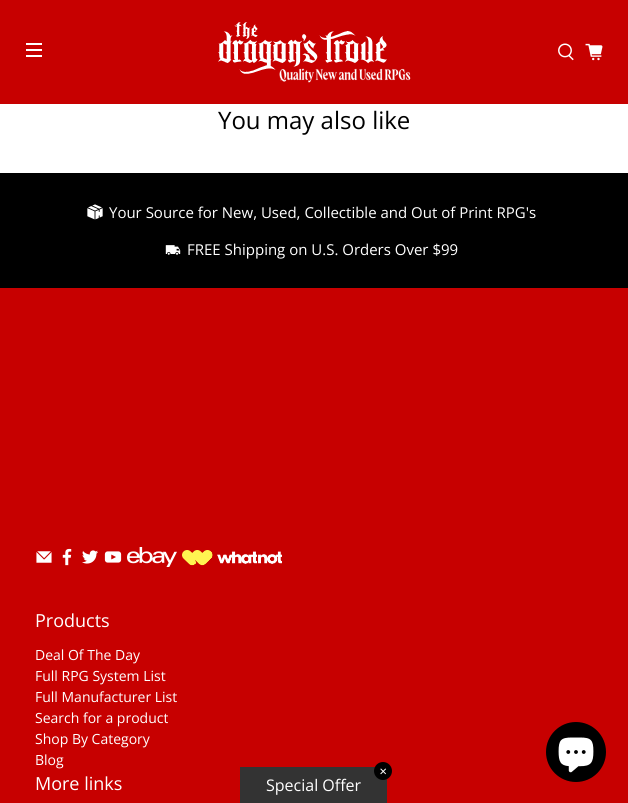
#include <cairo/cairo.h>
#include <math.h>
#include <stddef.h>

static cairo_t *cr;

static void use_color(int r, int g, int b) {
  cairo_set_source_rgb(cr, r / 255.0, g / 255.0, b / 255.0);
}

static void text(double x, double y, const char *s, const char *family, double size, int italic, int bold, int r, int g, int b) {
  cairo_select_font_face(cr, family, italic ? CAIRO_FONT_SLANT_ITALIC : CAIRO_FONT_SLANT_NORMAL,
    bold ? CAIRO_FONT_WEIGHT_BOLD : CAIRO_FONT_WEIGHT_NORMAL);
  cairo_set_font_size(cr, size);
  use_color(r, g, b);
  cairo_move_to(cr, x, y);
  cairo_show_text(cr, s);
}

static void box(double x, double y, double w, double h, int r, int g, int b) {
  use_color(r, g, b);
  cairo_rectangle(cr, x, y, w, h);
  cairo_fill(cr);
}

static void picture(const char *path, double x, double y, double w, double h) {
  cairo_surface_t *image = cairo_image_surface_create_from_png(path);
  cairo_save(cr);
  cairo_set_source_surface(cr, image, x, y);
  cairo_rectangle(cr, x, y, w, h);
  cairo_fill(cr);
  cairo_restore(cr);
  cairo_surface_destroy(image);
}

static void draw(void) {
  use_color(255, 255, 255);
  cairo_paint(cr);
  box(0, 0, 628, 104, 199, 0, 0);
  box(26, 43, 16, 2, 255, 255, 255);
  box(26, 49, 16, 2, 255, 255, 255);
  box(26, 55, 16, 2, 255, 255, 255);
  picture("img_01.png", 218, 22, 193, 61);
  picture("img_02.png", 558, 43, 16, 18);
  picture("img_03.png", 585, 43, 18, 18);
  box(0, 173, 628, 115, 0, 0, 0);
  picture("img_04.png", 87, 204, 16, 16);
  picture("img_05.png", 165, 245, 16, 10);
  box(0, 288, 628, 515, 199, 0, 0);
  picture("img_06.png", 36, 551, 16, 12);
  picture("img_07.png", 62, 548, 10, 18);
  picture("img_08.png", 82, 550, 16, 14);
  picture("img_09.png", 104, 551, 18, 12);
  picture("img_10.png", 127, 547, 50, 20);
  picture("img_11.png", 182, 550, 100, 16);
  box(240, 767, 147, 36, 51, 51, 51);
  use_color(0, 0, 0);
  cairo_arc(cr, 383, 771, 9, 0, 2 * M_PI);
  cairo_fill(cr);
  cairo_arc(cr, 576, 752, 30, 0, 2 * M_PI);
  cairo_fill(cr);
  picture("img_12.png", 558, 737, 36, 36);
  text(218, 129, "You may also like", "Open Sans", 24, 0, 0, 0, 0, 0);
  text(109, 218, "Your Source for New, Used, Collectible and Out of Print RPG's", "Open Sans", 15, 0, 0, 255, 255, 255);
  text(187, 255, "FREE Shipping on U.S. Orders Over $99", "Open Sans", 15, 0, 0, 255, 255, 255);
  text(35, 627, "Products", "Open Sans", 18, 0, 0, 255, 255, 255);
  text(35, 660, "Deal Of The Day", "Open Sans", 14, 0, 0, 255, 255, 255);
  text(35, 681, "Full RPG System List", "Open Sans", 14, 0, 0, 255, 255, 255);
  text(35, 702, "Full Manufacturer List", "Open Sans", 14, 0, 0, 255, 255, 255);
  text(35, 723, "Search for a product", "Open Sans", 14, 0, 0, 255, 255, 255);
  text(35, 744, "Shop By Category", "Open Sans", 14, 0, 0, 255, 255, 255);
  text(35, 765, "Blog", "Open Sans", 14, 0, 0, 255, 255, 255);
  text(35, 790, "More links", "Open Sans", 18, 0, 0, 255, 255, 255);
  text(379, 775, "✕", "DejaVu Sans", 10, 0, 0, 255, 255, 255);
  text(266, 791, "Special Offer", "Open Sans", 16, 0, 0, 255, 255, 255);
}

int main(void) {
  cairo_surface_t *surface = cairo_image_surface_create(CAIRO_FORMAT_RGB24, 628, 803);
  cr = cairo_create(surface);
  cairo_font_options_t *options = cairo_font_options_create();
  cairo_font_options_set_hint_metrics(options, CAIRO_HINT_METRICS_OFF);
  cairo_font_options_set_hint_style(options, CAIRO_HINT_STYLE_NONE);
  cairo_set_font_options(cr, options);
  cairo_set_miter_limit(cr, 4);
  draw();
  cairo_surface_write_to_png(surface, "out.png");
  cairo_font_options_destroy(options);
  cairo_destroy(cr);
  cairo_surface_destroy(surface);
  return 0;
}
